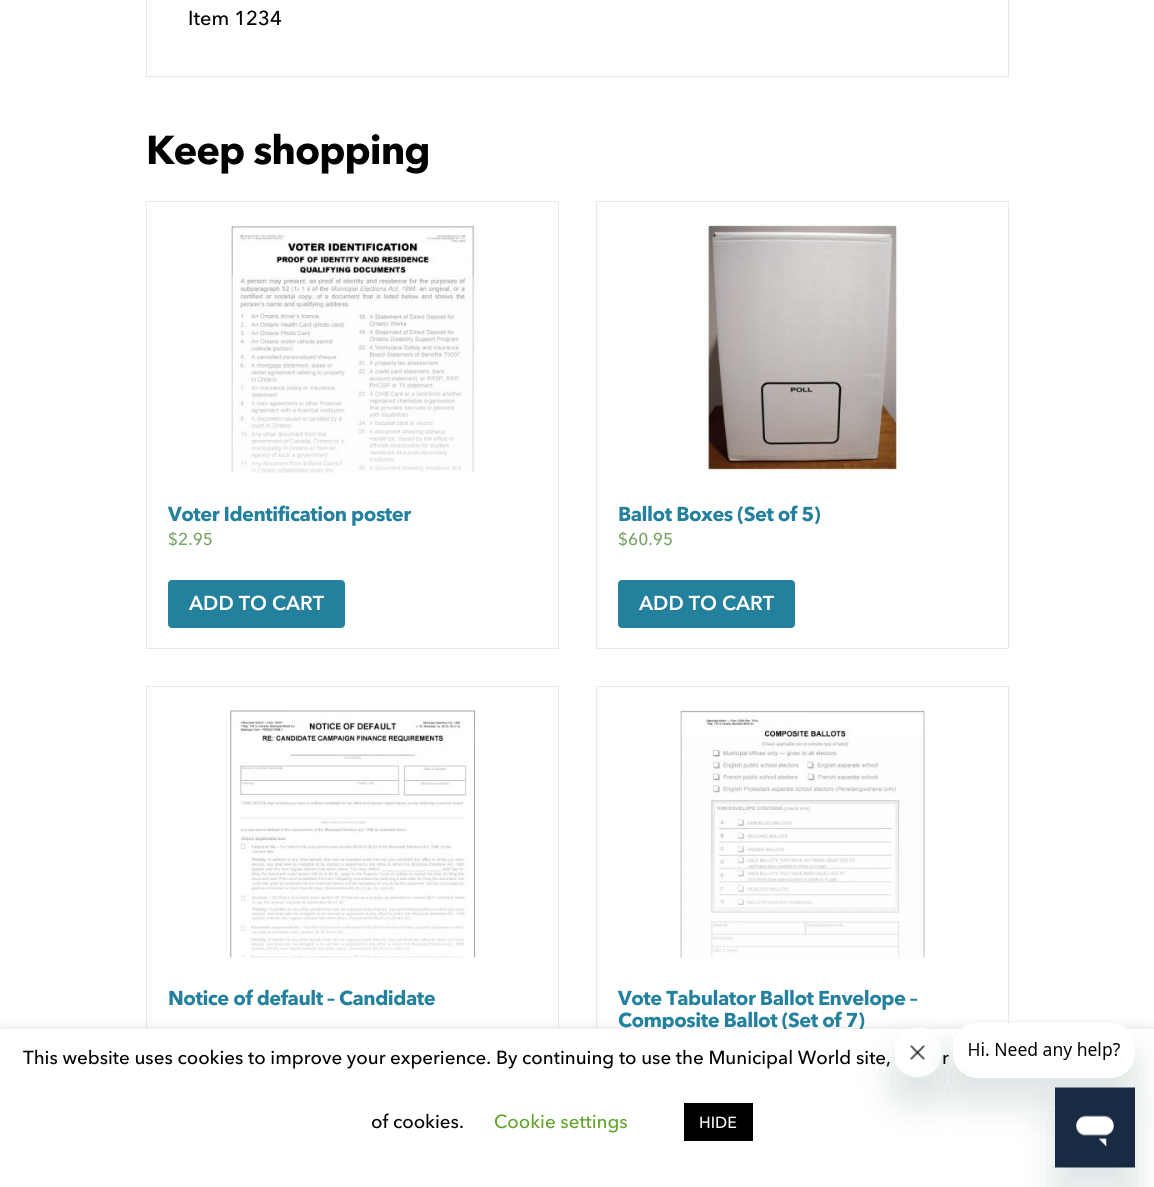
#include <cairo/cairo.h>
#include <math.h>
#include <stddef.h>

static cairo_t *cr;

static void use_color(int r, int g, int b) {
  cairo_set_source_rgb(cr, r / 255.0, g / 255.0, b / 255.0);
}

static void text(double x, double y, const char *s, const char *family, double size, int italic, int bold, int r, int g, int b) {
  cairo_select_font_face(cr, family, italic ? CAIRO_FONT_SLANT_ITALIC : CAIRO_FONT_SLANT_NORMAL,
    bold ? CAIRO_FONT_WEIGHT_BOLD : CAIRO_FONT_WEIGHT_NORMAL);
  cairo_set_font_size(cr, size);
  use_color(r, g, b);
  cairo_move_to(cr, x, y);
  cairo_show_text(cr, s);
}

static void spaced_text(double x, double y, const char *s, double letter, double word) {
  cairo_move_to(cr, x, y);
  while (*s) {
    char ch[5] = {0};
    int n = 0;
    do ch[n++] = *s++; while ((*s & 0xC0) == 0x80);
    cairo_show_text(cr, ch);
    cairo_rel_move_to(cr, letter + word * (*ch == ' '), 0);
  }
}

static void box(double x, double y, double w, double h, int r, int g, int b) {
  use_color(r, g, b);
  cairo_rectangle(cr, x, y, w, h);
  cairo_fill(cr);
}

static void round_rect(double x, double y, double w, double h, double r) {
  cairo_new_sub_path(cr);
  cairo_arc(cr, x + w - r, y + h - r, r, 0, M_PI / 2);
  cairo_arc(cr, x + r, y + h - r, r, M_PI / 2, M_PI);
  cairo_arc(cr, x + r, y + r, r, M_PI, 1.5 * M_PI);
  cairo_arc(cr, x + w - r, y + r, r, 1.5 * M_PI, 2 * M_PI);
  cairo_close_path(cr);
}

static void shadow(double x, double y, double w, double h, double r, double blur, double alpha) {
  cairo_push_group_with_content(cr, CAIRO_CONTENT_ALPHA);
  cairo_set_operator(cr, CAIRO_OPERATOR_SOURCE);
  for (int i = 15; i >= -15 && fmin(w, h) + blur * i / 3 > 0; i -= 2) {
    double e = blur * i / 6;
    cairo_set_source_rgba(cr, 0, 0, 0, alpha * erfc((i - 1) / 8.5) / 2);
    round_rect(x - e, y - e, w + 2 * e, h + 2 * e, fmax(0, fmin(r + e + blur * .6, fmin(w, h) / 2 + e)));
    cairo_fill(cr);
  }
  cairo_pattern_t *soft = cairo_pop_group(cr);
  cairo_mask(cr, soft);
  cairo_pattern_destroy(soft);
}

static void picture(const char *path, double x, double y, double w, double h) {
  cairo_surface_t *image = cairo_image_surface_create_from_png(path);
  cairo_save(cr);
  cairo_set_source_surface(cr, image, x, y);
  cairo_rectangle(cr, x, y, w, h);
  cairo_fill(cr);
  cairo_restore(cr);
  cairo_surface_destroy(image);
}

static void draw(void) {
  use_color(255, 255, 255);
  cairo_paint(cr);
  box(1008, 0, 1, 78, 233, 233, 233);
  box(146, 76, 863, 1, 233, 233, 233);
  box(146, 0, 1, 78, 233, 233, 233);
  cairo_rectangle(cr, 146.5, 201.5, 412, 447);
  cairo_set_line_width(cr, 1);
  cairo_stroke(cr);
  picture("img_01.png", 227, 223, 248, 250);
  use_color(36, 129, 158);
  round_rect(168.5, 580.5, 176, 47, 3.5);
  cairo_fill_preserve(cr);
  cairo_stroke(cr);
  cairo_rectangle(cr, 596.5, 201.5, 412, 447);
  use_color(233, 233, 233);
  cairo_stroke(cr);
  picture("img_02.png", 704, 222, 200, 251);
  use_color(36, 129, 158);
  round_rect(618.5, 580.5, 176, 47, 3.5);
  cairo_fill_preserve(cr);
  cairo_stroke(cr);
  cairo_rectangle(cr, 146.5, 686.5, 412, 468);
  use_color(233, 233, 233);
  cairo_stroke(cr);
  picture("img_03.png", 229, 710, 248, 248);
  cairo_rectangle(cr, 596.5, 686.5, 412, 468);
  cairo_stroke(cr);
  picture("img_04.png", 679, 709, 247, 249);
  use_color(172, 171, 171);
  shadow(0, 1028, 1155, 158, 0, 6, 0.3);
  text(188, 25, "Item 1234", "Avenir Next Medium", 20, 0, 0, 1, 1, 1);
  cairo_select_font_face(cr, "Avenir Next", CAIRO_FONT_SLANT_NORMAL, CAIRO_FONT_WEIGHT_BOLD);
  cairo_set_font_size(cr, 40);
  spaced_text(146, 164, "Keep shopping", -1, 0);
  cairo_set_font_size(cr, 20);
  use_color(36, 129, 158);
  spaced_text(168, 521, "Voter Identification poster", -0.5, 0);
  text(168, 545, "$2.95", "Avenir Next Medium", 17, 0, 0, 119, 164, 100);
  text(189, 610, "ADD TO CART", "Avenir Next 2", 20, 0, 1, 255, 255, 255);
  cairo_select_font_face(cr, "Avenir Next", CAIRO_FONT_SLANT_NORMAL, CAIRO_FONT_WEIGHT_BOLD);
  use_color(36, 129, 158);
  spaced_text(618, 521, "Ballot Boxes (Set of 5)", -0.5, 0);
  text(618, 545, "$60.95", "Avenir Next Medium", 17, 0, 0, 119, 164, 100);
  text(639, 610, "ADD TO CART", "Avenir Next 2", 20, 0, 1, 255, 255, 255);
  cairo_select_font_face(cr, "Avenir Next", CAIRO_FONT_SLANT_NORMAL, CAIRO_FONT_WEIGHT_BOLD);
  use_color(36, 129, 158);
  spaced_text(168, 1005, "Notice of default – Candidate", -0.5, 0);
  spaced_text(618, 1005, "Vote Tabulator Ballot Envelope –", -0.5, 0);
  spaced_text(618, 1027, "Composite Ballot (Set of 7)", -0.5, 0);
  box(0, 1029, 1154, 158, 255, 255, 255);
  text(23, 1064, "This website uses cookies to improve your experience. By continuing to use the Municipal World site,", "Avenir Next Medium", 18.75, 0, 0, 1, 1, 1);
  text(942, 1064, "r", "Avenir Next Medium", 18.75, 0, 0, 1, 1, 1);
  text(371, 1128, "of cookies.", "Avenir Next Medium", 18.75, 0, 0, 1, 1, 1);
  text(494, 1128, "Cookie settings", "Avenir Next Medium", 18.75, 0, 0, 98, 163, 41);
  box(684, 1103, 69, 38, 0, 0, 0);
  text(699, 1128, "HIDE", "Avenir Next Medium", 16, 0, 0, 255, 255, 255);
  use_color(23, 73, 77);
  shadow(893, 1053, 50, 50, 25, 19, 0.15);
  picture("img_06.png", 895, 1027, 46, 51);
  cairo_save(cr);
  cairo_set_fill_rule(cr, CAIRO_FILL_RULE_EVEN_ODD);
  cairo_new_path(cr);
  cairo_move_to(cr, 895, 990);
  cairo_line_to(cr, 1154, 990);
  cairo_line_to(cr, 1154, 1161);
  cairo_line_to(cr, 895, 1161);
  cairo_close_path(cr);
  cairo_move_to(cr, 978, 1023);
  cairo_line_to(cr, 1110, 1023);
  cairo_curve_to(cr, 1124, 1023, 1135, 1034, 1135, 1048);
  cairo_line_to(cr, 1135, 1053);
  cairo_curve_to(cr, 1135, 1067, 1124, 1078, 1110, 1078);
  cairo_line_to(cr, 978, 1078);
  cairo_curve_to(cr, 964, 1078, 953, 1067, 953, 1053);
  cairo_line_to(cr, 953, 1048);
  cairo_curve_to(cr, 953, 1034, 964, 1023, 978, 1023);
  cairo_close_path(cr);
  cairo_clip(cr);
  shadow(953, 1048, 182, 55, 25, 19, 0.15);
  cairo_restore(cr);
  picture("img_05.png", 953, 1023, 178, 48);
  shadow(1055, 1113, 80, 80, 0, 19, 0.15);
  picture("img_07.png", 1055, 1087, 80, 81);
}

int main(void) {
  cairo_surface_t *surface = cairo_image_surface_create(CAIRO_FORMAT_RGB24, 1154, 1187);
  cr = cairo_create(surface);
  cairo_font_options_t *options = cairo_font_options_create();
  cairo_font_options_set_hint_metrics(options, CAIRO_HINT_METRICS_OFF);
  cairo_font_options_set_hint_style(options, CAIRO_HINT_STYLE_NONE);
  cairo_set_font_options(cr, options);
  cairo_set_miter_limit(cr, 4);
  draw();
  cairo_surface_write_to_png(surface, "out.png");
  cairo_font_options_destroy(options);
  cairo_destroy(cr);
  cairo_surface_destroy(surface);
  return 0;
}
